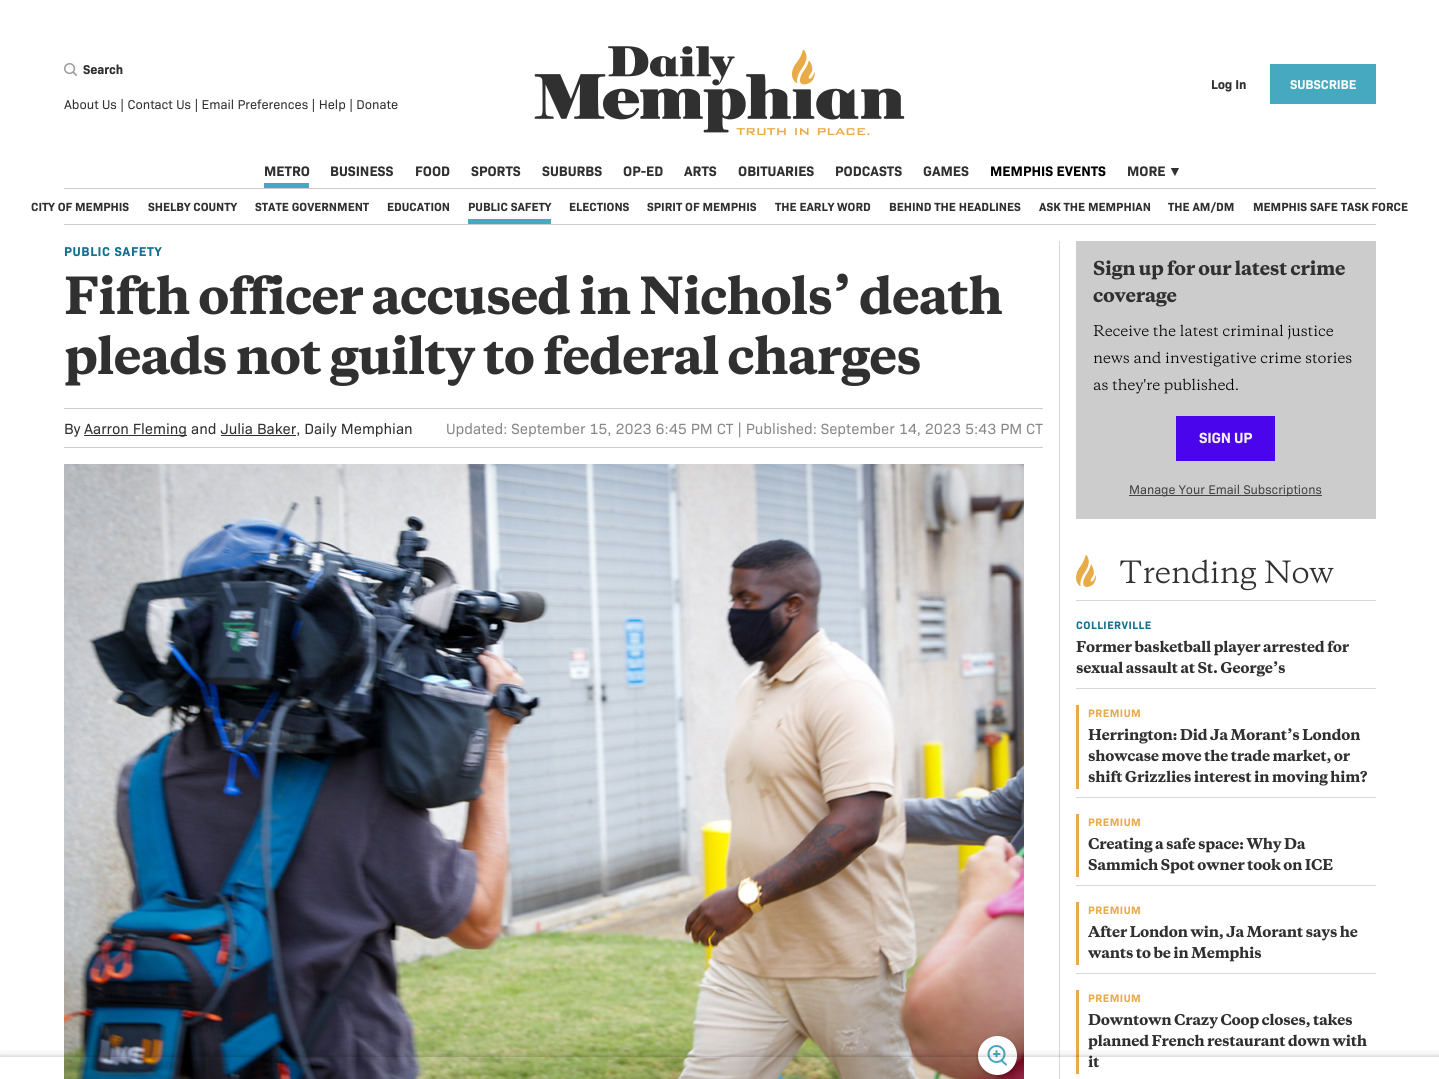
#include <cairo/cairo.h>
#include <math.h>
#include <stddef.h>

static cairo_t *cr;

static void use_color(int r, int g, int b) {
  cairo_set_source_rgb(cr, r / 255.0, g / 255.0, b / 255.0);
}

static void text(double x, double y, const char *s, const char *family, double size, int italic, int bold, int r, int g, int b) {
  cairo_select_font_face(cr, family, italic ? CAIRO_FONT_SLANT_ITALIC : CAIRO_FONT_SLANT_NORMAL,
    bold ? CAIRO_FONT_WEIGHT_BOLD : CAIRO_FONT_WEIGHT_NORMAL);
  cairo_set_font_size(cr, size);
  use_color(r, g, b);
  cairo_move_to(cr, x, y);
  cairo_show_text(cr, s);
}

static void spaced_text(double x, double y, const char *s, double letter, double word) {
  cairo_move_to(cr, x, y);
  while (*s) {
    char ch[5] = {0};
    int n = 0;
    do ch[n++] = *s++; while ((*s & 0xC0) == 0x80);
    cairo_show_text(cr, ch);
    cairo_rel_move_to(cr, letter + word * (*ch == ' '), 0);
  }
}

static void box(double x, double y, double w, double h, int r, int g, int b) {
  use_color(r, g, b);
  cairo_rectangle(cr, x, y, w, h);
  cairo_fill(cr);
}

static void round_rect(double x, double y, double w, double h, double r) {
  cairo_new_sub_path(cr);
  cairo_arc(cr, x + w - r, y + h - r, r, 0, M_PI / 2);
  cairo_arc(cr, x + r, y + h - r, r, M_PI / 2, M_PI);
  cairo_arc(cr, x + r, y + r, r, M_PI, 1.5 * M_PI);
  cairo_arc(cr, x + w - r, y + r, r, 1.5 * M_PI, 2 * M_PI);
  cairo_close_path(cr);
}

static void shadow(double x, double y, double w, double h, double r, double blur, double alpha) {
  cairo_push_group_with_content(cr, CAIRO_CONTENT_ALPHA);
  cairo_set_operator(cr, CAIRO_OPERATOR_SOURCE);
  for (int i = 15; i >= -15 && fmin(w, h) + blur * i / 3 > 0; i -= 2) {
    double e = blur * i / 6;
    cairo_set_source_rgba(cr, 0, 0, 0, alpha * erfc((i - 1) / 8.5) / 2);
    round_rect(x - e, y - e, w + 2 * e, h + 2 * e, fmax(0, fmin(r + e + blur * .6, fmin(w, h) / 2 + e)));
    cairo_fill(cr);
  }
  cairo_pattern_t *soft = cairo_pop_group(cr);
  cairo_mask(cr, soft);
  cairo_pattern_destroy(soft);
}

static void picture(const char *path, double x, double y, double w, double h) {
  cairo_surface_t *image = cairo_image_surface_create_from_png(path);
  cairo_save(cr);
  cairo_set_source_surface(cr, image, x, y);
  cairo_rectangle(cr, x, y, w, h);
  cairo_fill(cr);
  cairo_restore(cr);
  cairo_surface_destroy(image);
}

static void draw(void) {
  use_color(255, 255, 255);
  cairo_paint(cr);
  picture("img_01.png", 64, 63, 13, 13);
  picture("img_02.png", 534, 46, 371, 90);
  box(1270, 64, 106, 40, 71, 169, 192);
  box(64, 188, 1312, 1, 204, 204, 204);
  box(264, 183, 45, 5, 71, 169, 192);
  box(64, 224, 1312, 1, 204, 204, 204);
  box(468, 219, 83, 5, 71, 169, 192);
  box(1059, 241, 1, 838, 216, 216, 216);
  picture("img_03.png", 65, 273, 937, 42);
  picture("img_04.png", 65, 335, 855, 51);
  box(64, 408, 979, 1, 204, 204, 204);
  box(64, 447, 979, 1, 204, 204, 204);
  box(84, 435, 103, 1, 48, 48, 48);
  box(221, 435, 75, 1, 48, 48, 48);
  picture("img_05.png", 64, 464, 960, 615);
  use_color(0, 0, 0);
  shadow(978, 1037, 39, 39, 19.5, 2, 0.25);
  use_color(255, 255, 255);
  cairo_arc(cr, 997.5, 1055.5, 19.5, 0, 2 * M_PI);
  cairo_fill(cr);
  cairo_arc(cr, 996.5, 1054, 8, 0, 2 * M_PI);
  use_color(71, 169, 192);
  cairo_stroke(cr);
  cairo_new_path(cr);
  cairo_move_to(cr, 1001.5, 1060.5);
  cairo_line_to(cr, 1006, 1064.5);
  cairo_move_to(cr, 996.5, 1051);
  cairo_line_to(cr, 996.5, 1056.5);
  cairo_move_to(cr, 999.5, 1054);
  cairo_line_to(cr, 994, 1054);
  cairo_set_line_cap(cr, CAIRO_LINE_CAP_ROUND);
  cairo_stroke(cr);
  box(1076, 241, 300, 278, 204, 204, 204);
  picture("img_06.png", 1093, 260, 252, 20);
  picture("img_07.png", 1093, 291, 84, 16);
  picture("img_08.png", 1093, 324, 240, 16);
  picture("img_09.png", 1093, 351, 259, 16);
  picture("img_10.png", 1093, 378, 145, 16);
  box(1176, 416, 99, 45, 75, 5, 236);
  box(1129, 495, 193, 1, 68, 68, 68);
  box(1076, 600, 300, 1, 216, 216, 216);
  picture("img_11.png", 1076, 555, 20, 32);
  picture("img_12.png", 1120, 559, 214, 32);
  box(1076, 688, 300, 1, 216, 216, 216);
  picture("img_13.png", 1076, 640, 273, 16);
  picture("img_14.png", 1076, 661, 209, 16);
  box(1076, 797, 300, 1, 216, 216, 216);
  box(1076, 705, 3, 84, 232, 171, 71);
  picture("img_15.png", 1088, 728, 273, 16);
  picture("img_16.png", 1088, 749, 262, 15);
  picture("img_17.png", 1088, 770, 279, 16);
  box(1076, 885, 300, 1, 216, 216, 216);
  box(1076, 814, 3, 63, 232, 171, 71);
  picture("img_18.png", 1088, 837, 218, 16);
  picture("img_19.png", 1088, 858, 245, 16);
  box(1076, 973, 300, 1, 216, 216, 216);
  box(1076, 902, 3, 63, 232, 171, 71);
  picture("img_20.png", 1088, 925, 270, 16);
  picture("img_21.png", 1088, 946, 173, 16);
  box(1076, 990, 3, 84, 232, 171, 71);
  picture("img_22.png", 1088, 1013, 264, 16);
  picture("img_23.png", 1088, 1034, 279, 16);
  picture("img_24.png", 1088, 1055, 12, 13);
  cairo_save(cr);
  cairo_rectangle(cr, 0, 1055, 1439, 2);
  cairo_clip(cr);
  use_color(0, 0, 0);
  shadow(0, 1057, 1439, 22, 0, 2, 0.1);
  cairo_restore(cr);
  cairo_save(cr);
  cairo_rectangle(cr, 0, 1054, 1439, 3);
  cairo_clip(cr);
  use_color(0, 0, 0);
  shadow(0, 1057, 1439, 22, 0, 4, 0.1);
  cairo_restore(cr);
  cairo_save(cr);
  cairo_rectangle(cr, 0, 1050, 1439, 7);
  cairo_clip(cr);
  use_color(0, 0, 0);
  shadow(0, 1057, 1439, 22, 0, 8, 0.1);
  cairo_restore(cr);
  cairo_select_font_face(cr, "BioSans", CAIRO_FONT_SLANT_NORMAL, CAIRO_FONT_WEIGHT_BOLD);
  cairo_set_font_size(cr, 13);
  use_color(48, 48, 48);
  spaced_text(83, 74, "Search", -0.1, 0);
  text(64, 109, "About Us | Contact Us | Email Preferences | Help | Donate", "BioSans", 13, 0, 0, 48, 48, 48);
  cairo_select_font_face(cr, "BioSans", CAIRO_FONT_SLANT_NORMAL, CAIRO_FONT_WEIGHT_BOLD);
  spaced_text(1211, 89, "Log In", -0.1, 0);
  use_color(248, 248, 248);
  spaced_text(1290, 89, "SUBSCRIBE", -0.1, 0);
  text(264, 176, "METRO", "BioSans", 14, 0, 1, 48, 48, 48);
  text(330, 176, "BUSINESS", "BioSans", 14, 0, 1, 48, 48, 48);
  text(415, 176, "FOOD", "BioSans", 14, 0, 1, 48, 48, 48);
  text(471, 176, "SPORTS", "BioSans", 14, 0, 1, 48, 48, 48);
  text(542, 176, "SUBURBS", "BioSans", 14, 0, 1, 48, 48, 48);
  text(623, 176, "OP-ED", "BioSans", 14, 0, 1, 48, 48, 48);
  text(684, 176, "ARTS", "BioSans", 14, 0, 1, 48, 48, 48);
  text(738, 176, "OBITUARIES", "BioSans", 14, 0, 1, 48, 48, 48);
  text(835, 176, "PODCASTS", "BioSans", 14, 0, 1, 48, 48, 48);
  text(923, 176, "GAMES", "BioSans", 14, 0, 1, 48, 48, 48);
  text(990, 176, "MEMPHIS EVENTS", "BioSans", 14, 0, 1, 0, 0, 0);
  text(1127, 176, "MORE", "BioSans", 14, 0, 1, 48, 48, 48);
  text(1168, 176, "▼", "Liberation Sans", 14, 0, 1, 48, 48, 48);
  text(31, 211, "CITY OF MEMPHIS", "BioSans", 12, 0, 1, 48, 48, 48);
  text(148, 211, "SHELBY COUNTY", "BioSans", 12, 0, 1, 48, 48, 48);
  text(255, 211, "STATE GOVERNMENT", "BioSans", 12, 0, 1, 48, 48, 48);
  text(387, 211, "EDUCATION", "BioSans", 12, 0, 1, 48, 48, 48);
  text(468, 211, "PUBLIC SAFETY", "BioSans", 12, 0, 1, 48, 48, 48);
  text(569, 211, "ELECTIONS", "BioSans", 12, 0, 1, 48, 48, 48);
  text(647, 211, "SPIRIT OF MEMPHIS", "BioSans", 12, 0, 1, 48, 48, 48);
  text(775, 211, "THE EARLY WORD", "BioSans", 12, 0, 1, 48, 48, 48);
  text(889, 211, "BEHIND THE HEADLINES", "BioSans", 12, 0, 1, 48, 48, 48);
  text(1039, 211, "ASK THE MEMPHIAN", "BioSans", 12, 0, 1, 48, 48, 48);
  text(1168, 211, "THE AM/DM", "BioSans", 12, 0, 1, 48, 48, 48);
  text(1253, 211, "MEMPHIS SAFE TASK FORCE", "BioSans", 12, 0, 1, 48, 48, 48);
  cairo_set_font_size(cr, 13);
  use_color(19, 112, 144);
  spaced_text(64, 256, "PUBLIC SAFETY", 0.6, 0);
  text(64, 434, "By", "BioSans", 15, 0, 0, 48, 48, 48);
  text(84, 434, "Aarron Fleming and Julia Baker, Daily Memphian", "BioSans", 15, 0, 0, 48, 48, 48);
  text(446, 434, "Updated: September 15, 2023 6:45 PM CT | Published: September 14, 2023 5:43 PM CT", "BioSans", 15, 0, 0, 135, 135, 135);
  cairo_select_font_face(cr, "BioSans", CAIRO_FONT_SLANT_NORMAL, CAIRO_FONT_WEIGHT_BOLD);
  use_color(243, 238, 238);
  spaced_text(1199, 443, "SIGN UP", -0.25, 0);
  text(1129, 494, "Manage Your Email Subscriptions", "BioSans", 12.75, 0, 0, 68, 68, 68);
  cairo_select_font_face(cr, "BioSans", CAIRO_FONT_SLANT_NORMAL, CAIRO_FONT_WEIGHT_BOLD);
  cairo_set_font_size(cr, 11);
  use_color(19, 112, 144);
  spaced_text(1076, 629, "COLLIERVILLE", 0.5, 0);
  use_color(232, 171, 71);
  spaced_text(1088, 717, "PREMIUM", 0.5, 0);
  spaced_text(1088, 826, "PREMIUM", 0.5, 0);
  spaced_text(1088, 914, "PREMIUM", 0.5, 0);
  spaced_text(1088, 1002, "PREMIUM", 0.5, 0);
}

int main(void) {
  cairo_surface_t *surface = cairo_image_surface_create(CAIRO_FORMAT_RGB24, 1439, 1079);
  cr = cairo_create(surface);
  cairo_font_options_t *options = cairo_font_options_create();
  cairo_font_options_set_hint_metrics(options, CAIRO_HINT_METRICS_OFF);
  cairo_font_options_set_hint_style(options, CAIRO_HINT_STYLE_NONE);
  cairo_set_font_options(cr, options);
  cairo_set_miter_limit(cr, 4);
  draw();
  cairo_surface_write_to_png(surface, "out.png");
  cairo_font_options_destroy(options);
  cairo_destroy(cr);
  cairo_surface_destroy(surface);
  return 0;
}
